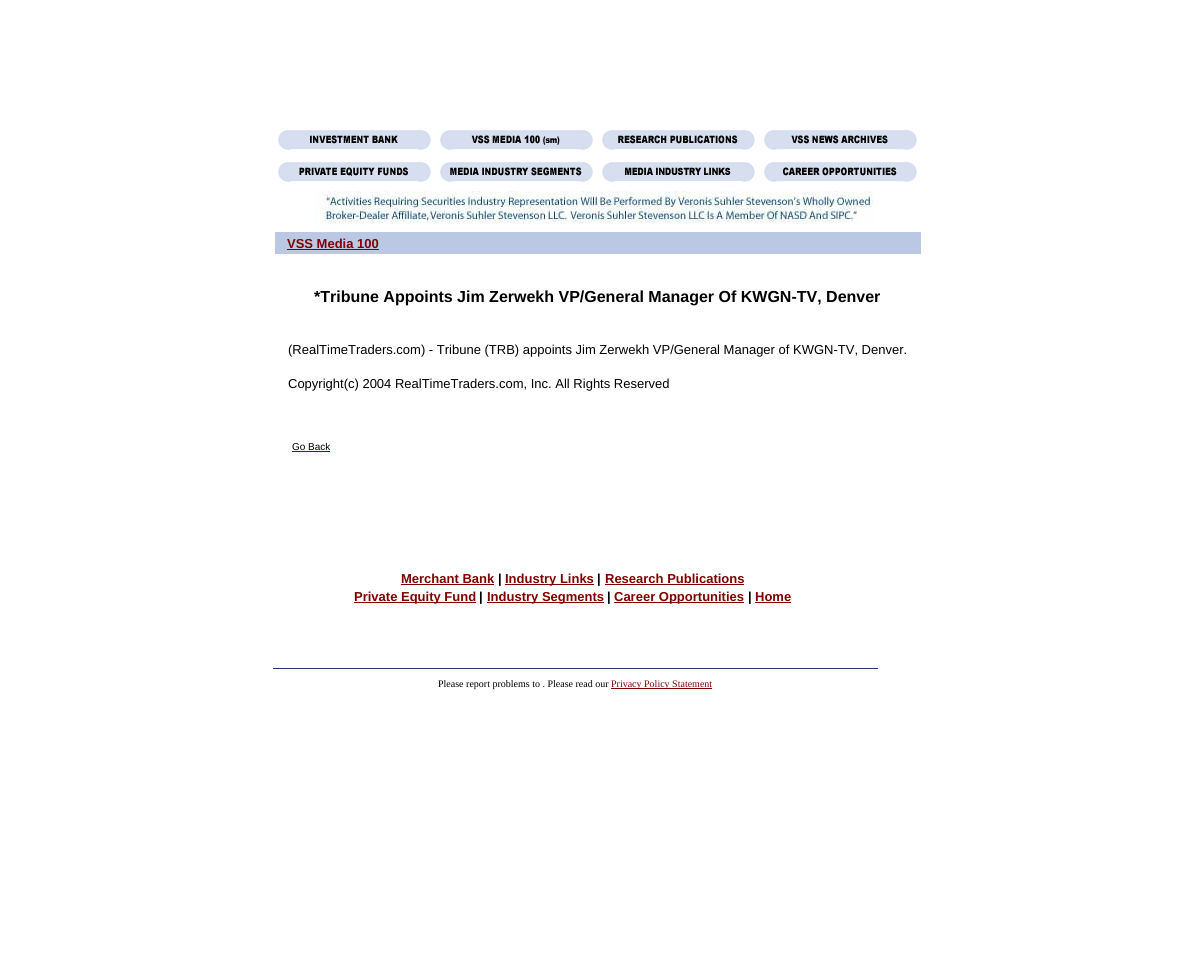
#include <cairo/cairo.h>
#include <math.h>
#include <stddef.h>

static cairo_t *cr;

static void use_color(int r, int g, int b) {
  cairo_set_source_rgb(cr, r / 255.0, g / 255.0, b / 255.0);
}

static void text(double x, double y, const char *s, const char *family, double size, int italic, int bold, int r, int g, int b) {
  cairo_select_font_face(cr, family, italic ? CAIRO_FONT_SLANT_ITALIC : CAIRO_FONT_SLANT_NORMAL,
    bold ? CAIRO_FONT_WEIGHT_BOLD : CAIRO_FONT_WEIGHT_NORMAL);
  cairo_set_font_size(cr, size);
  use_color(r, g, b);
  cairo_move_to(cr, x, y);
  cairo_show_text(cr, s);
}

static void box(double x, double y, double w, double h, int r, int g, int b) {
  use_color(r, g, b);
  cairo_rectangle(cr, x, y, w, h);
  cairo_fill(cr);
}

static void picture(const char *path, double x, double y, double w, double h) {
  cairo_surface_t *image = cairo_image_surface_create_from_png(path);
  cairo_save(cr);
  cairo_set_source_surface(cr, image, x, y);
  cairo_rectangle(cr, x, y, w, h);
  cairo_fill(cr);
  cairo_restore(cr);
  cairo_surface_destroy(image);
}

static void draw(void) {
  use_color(255, 255, 255);
  cairo_paint(cr);
  picture("img_01.png", 278, 129, 153, 21);
  picture("img_02.png", 440, 129, 153, 21);
  picture("img_03.png", 602, 129, 153, 21);
  picture("img_04.png", 764, 129, 153, 21);
  picture("img_05.png", 278, 161, 153, 21);
  picture("img_06.png", 440, 161, 153, 21);
  picture("img_07.png", 602, 162, 153, 20);
  picture("img_08.png", 764, 161, 153, 21);
  picture("img_09.png", 314, 191, 560, 33);
  box(275, 232, 646, 22, 187, 200, 227);
  box(287, 249, 92, 1, 128, 0, 0);
  box(292, 451, 38, 1, 128, 0, 0);
  box(401, 584, 93, 1, 128, 0, 0);
  box(505, 584, 89, 1, 128, 0, 0);
  box(605, 584, 139, 1, 128, 0, 0);
  box(354, 602, 122, 1, 128, 0, 0);
  box(487, 602, 117, 1, 128, 0, 0);
  box(614, 602, 130, 1, 128, 0, 0);
  box(755, 602, 36, 1, 128, 0, 0);
  box(273, 668, 605, 1, 35, 57, 107);
  box(611, 688, 101, 1, 128, 0, 0);
  text(287, 248, "VSS Media 100", "Liberation Sans", 13, 0, 1, 128, 0, 0);
  text(314, 302, "*Tribune Appoints Jim Zerwekh VP/General Manager Of KWGN-TV, Denver", "Liberation Sans", 16, 0, 1, 0, 0, 0);
  text(288, 354, "(RealTimeTraders.com) - Tribune (TRB) appoints Jim Zerwekh VP/General Manager of KWGN-TV, Denver.", "Liberation Sans", 13, 0, 0, 0, 0, 0);
  text(288, 388, "Copyright(c) 2004 RealTimeTraders.com, Inc. All Rights Reserved", "Liberation Sans", 13, 0, 0, 0, 0, 0);
  text(292, 450, "Go Back", "Liberation Sans", 10, 0, 0, 0, 0, 0);
  text(401, 583, "Merchant Bank", "Liberation Sans", 13, 0, 1, 128, 0, 0);
  text(498, 583, "|", "Liberation Sans", 13, 0, 1, 0, 0, 0);
  text(505, 583, "Industry Links", "Liberation Sans", 13, 0, 1, 128, 0, 0);
  text(597, 583, "|", "Liberation Sans", 13, 0, 1, 0, 0, 0);
  text(605, 583, "Research Publications", "Liberation Sans", 13, 0, 1, 128, 0, 0);
  text(354, 601, "Private Equity Fund", "Liberation Sans", 13, 0, 1, 128, 0, 0);
  text(479, 601, "|", "Liberation Sans", 13, 0, 1, 0, 0, 0);
  text(487, 601, "Industry Segments", "Liberation Sans", 13, 0, 1, 128, 0, 0);
  text(607, 601, "|", "Liberation Sans", 13, 0, 1, 0, 0, 0);
  text(614, 601, "Career Opportunities", "Liberation Sans", 13, 0, 1, 128, 0, 0);
  text(748, 601, "|", "Liberation Sans", 13, 0, 1, 0, 0, 0);
  text(755, 601, "Home", "Liberation Sans", 13, 0, 1, 128, 0, 0);
  text(438, 687, "Please report problems to . Please read our", "Liberation Serif", 10, 0, 0, 0, 0, 0);
  text(611, 687, "Privacy Policy Statement", "Liberation Serif", 10, 0, 0, 128, 0, 0);
}

int main(void) {
  cairo_surface_t *surface = cairo_image_surface_create(CAIRO_FORMAT_RGB24, 1195, 972);
  cr = cairo_create(surface);
  cairo_font_options_t *options = cairo_font_options_create();
  cairo_font_options_set_hint_metrics(options, CAIRO_HINT_METRICS_OFF);
  cairo_font_options_set_hint_style(options, CAIRO_HINT_STYLE_NONE);
  cairo_set_font_options(cr, options);
  cairo_set_miter_limit(cr, 4);
  draw();
  cairo_surface_write_to_png(surface, "out.png");
  cairo_font_options_destroy(options);
  cairo_destroy(cr);
  cairo_surface_destroy(surface);
  return 0;
}
